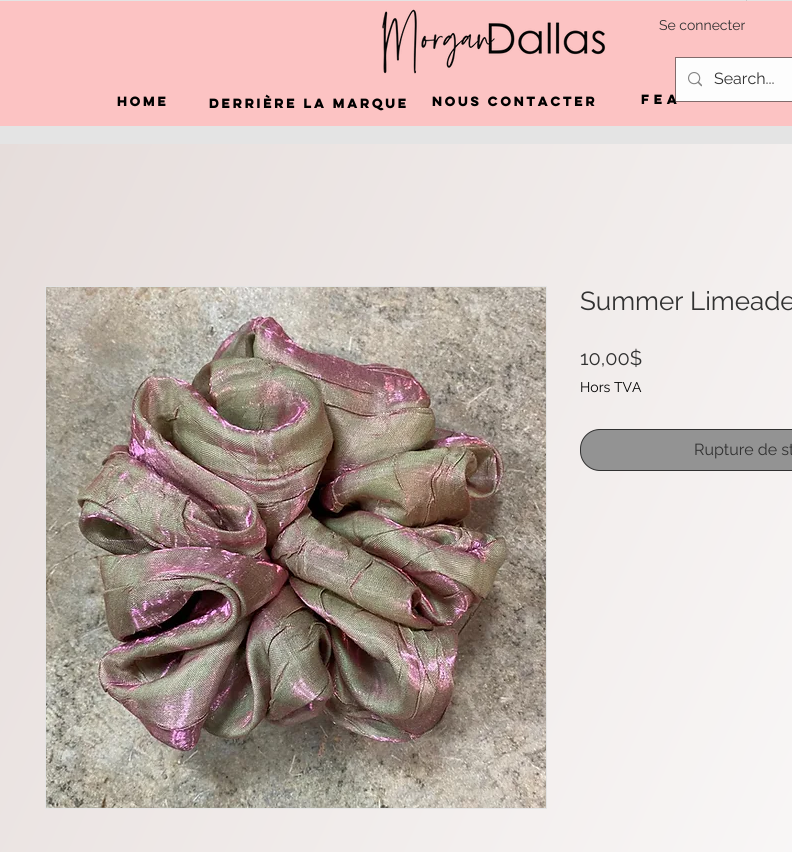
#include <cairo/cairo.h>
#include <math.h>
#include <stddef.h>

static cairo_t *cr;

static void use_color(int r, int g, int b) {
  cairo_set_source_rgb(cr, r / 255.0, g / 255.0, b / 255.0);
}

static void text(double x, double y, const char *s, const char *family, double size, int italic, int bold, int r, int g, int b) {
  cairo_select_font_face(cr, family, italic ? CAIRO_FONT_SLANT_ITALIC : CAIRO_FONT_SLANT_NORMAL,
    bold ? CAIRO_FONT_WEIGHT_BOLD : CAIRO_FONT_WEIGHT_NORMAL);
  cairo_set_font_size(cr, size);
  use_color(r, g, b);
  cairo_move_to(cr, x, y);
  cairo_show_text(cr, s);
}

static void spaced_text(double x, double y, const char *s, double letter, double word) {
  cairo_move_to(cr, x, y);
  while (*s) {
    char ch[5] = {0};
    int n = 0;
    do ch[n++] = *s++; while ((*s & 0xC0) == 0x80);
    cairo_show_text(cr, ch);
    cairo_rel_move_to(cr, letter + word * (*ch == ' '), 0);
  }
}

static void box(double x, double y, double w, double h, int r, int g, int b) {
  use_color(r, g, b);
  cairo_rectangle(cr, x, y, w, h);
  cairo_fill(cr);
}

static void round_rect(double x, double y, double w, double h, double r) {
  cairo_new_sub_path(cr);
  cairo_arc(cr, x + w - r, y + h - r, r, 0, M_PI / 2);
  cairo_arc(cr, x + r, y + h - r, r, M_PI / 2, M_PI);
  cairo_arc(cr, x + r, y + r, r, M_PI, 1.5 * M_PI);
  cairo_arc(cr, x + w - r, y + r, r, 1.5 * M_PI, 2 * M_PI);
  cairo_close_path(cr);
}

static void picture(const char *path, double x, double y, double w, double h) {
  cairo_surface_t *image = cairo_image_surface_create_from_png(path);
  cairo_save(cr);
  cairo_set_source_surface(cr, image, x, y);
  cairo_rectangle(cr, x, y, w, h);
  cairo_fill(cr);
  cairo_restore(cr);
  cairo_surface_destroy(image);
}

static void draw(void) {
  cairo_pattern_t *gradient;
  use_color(228, 228, 228);
  cairo_paint(cr);
  box(746, 0, 1, 1, 200, 200, 200);
  box(0, 1, 792, 125, 252, 195, 195);
  picture("img_01.png", 382, 9, 224, 65);
  gradient = cairo_pattern_create_linear(-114, 388, 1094, 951);
  cairo_pattern_add_color_stop_rgba(gradient, 0, 0.902, 0.867, 0.859, 1);
  cairo_pattern_add_color_stop_rgba(gradient, 1, 0.996, 0.996, 0.996, 1);
  cairo_set_source(cr, gradient);
  cairo_pattern_destroy(gradient);
  cairo_rectangle(cr, 0, 144, 792, 708);
  cairo_fill(cr);
  cairo_rectangle(cr, 45.5, 286.5, 501, 522);
  use_color(228, 228, 228);
  cairo_set_line_width(cr, 1);
  cairo_stroke(cr);
  picture("img_03.png", 46, 287, 500, 521);
  use_color(147, 147, 147);
  round_rect(580.5, 429.5, 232, 41, 19.5);
  cairo_fill_preserve(cr);
  use_color(49, 49, 49);
  cairo_stroke(cr);
  text(659, 30, "Se connecter", "Raleway", 14, 0, 0, 49, 49, 49);
  text(117, 106, "Home", "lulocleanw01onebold", 12, 0, 1, 0, 0, 0);
  text(209, 108, "DERRIÈRE LA MARQUE", "lulocleanw01onebold", 12, 0, 1, 0, 0, 0);
  text(432, 106, "NOUS CONTACTER", "lulocleanw01onebold", 12, 0, 1, 0, 0, 0);
  spaced_text(641, 104, "fea", 2, 0);
  cairo_rectangle(cr, 675.5, 57.5, 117, 44);
  cairo_set_source_rgba(cr, 0.192, 0.192, 0.192, 0.6);
  cairo_stroke(cr);
  box(676, 58, 116, 43, 253, 253, 253);
  picture("img_02.png", 688, 72, 14, 15);
  text(714, 84, "Search...", "Raleway", 16, 0, 0, 49, 49, 49);
  text(580, 310, "Summer Limeade", "Raleway", 26, 0, 0, 49, 49, 49);
  text(580, 365, "10,00$", "Raleway", 20, 0, 0, 49, 49, 49);
  text(580, 392, "Hors TVA", "Raleway", 14, 0, 0, 0, 0, 0);
  text(694, 455, "Rupture de st", "Raleway", 16, 0, 0, 49, 49, 49);
}

int main(void) {
  cairo_surface_t *surface = cairo_image_surface_create(CAIRO_FORMAT_RGB24, 792, 852);
  cr = cairo_create(surface);
  cairo_font_options_t *options = cairo_font_options_create();
  cairo_font_options_set_hint_metrics(options, CAIRO_HINT_METRICS_OFF);
  cairo_font_options_set_hint_style(options, CAIRO_HINT_STYLE_NONE);
  cairo_set_font_options(cr, options);
  cairo_set_miter_limit(cr, 4);
  draw();
  cairo_surface_write_to_png(surface, "out.png");
  cairo_font_options_destroy(options);
  cairo_destroy(cr);
  cairo_surface_destroy(surface);
  return 0;
}
